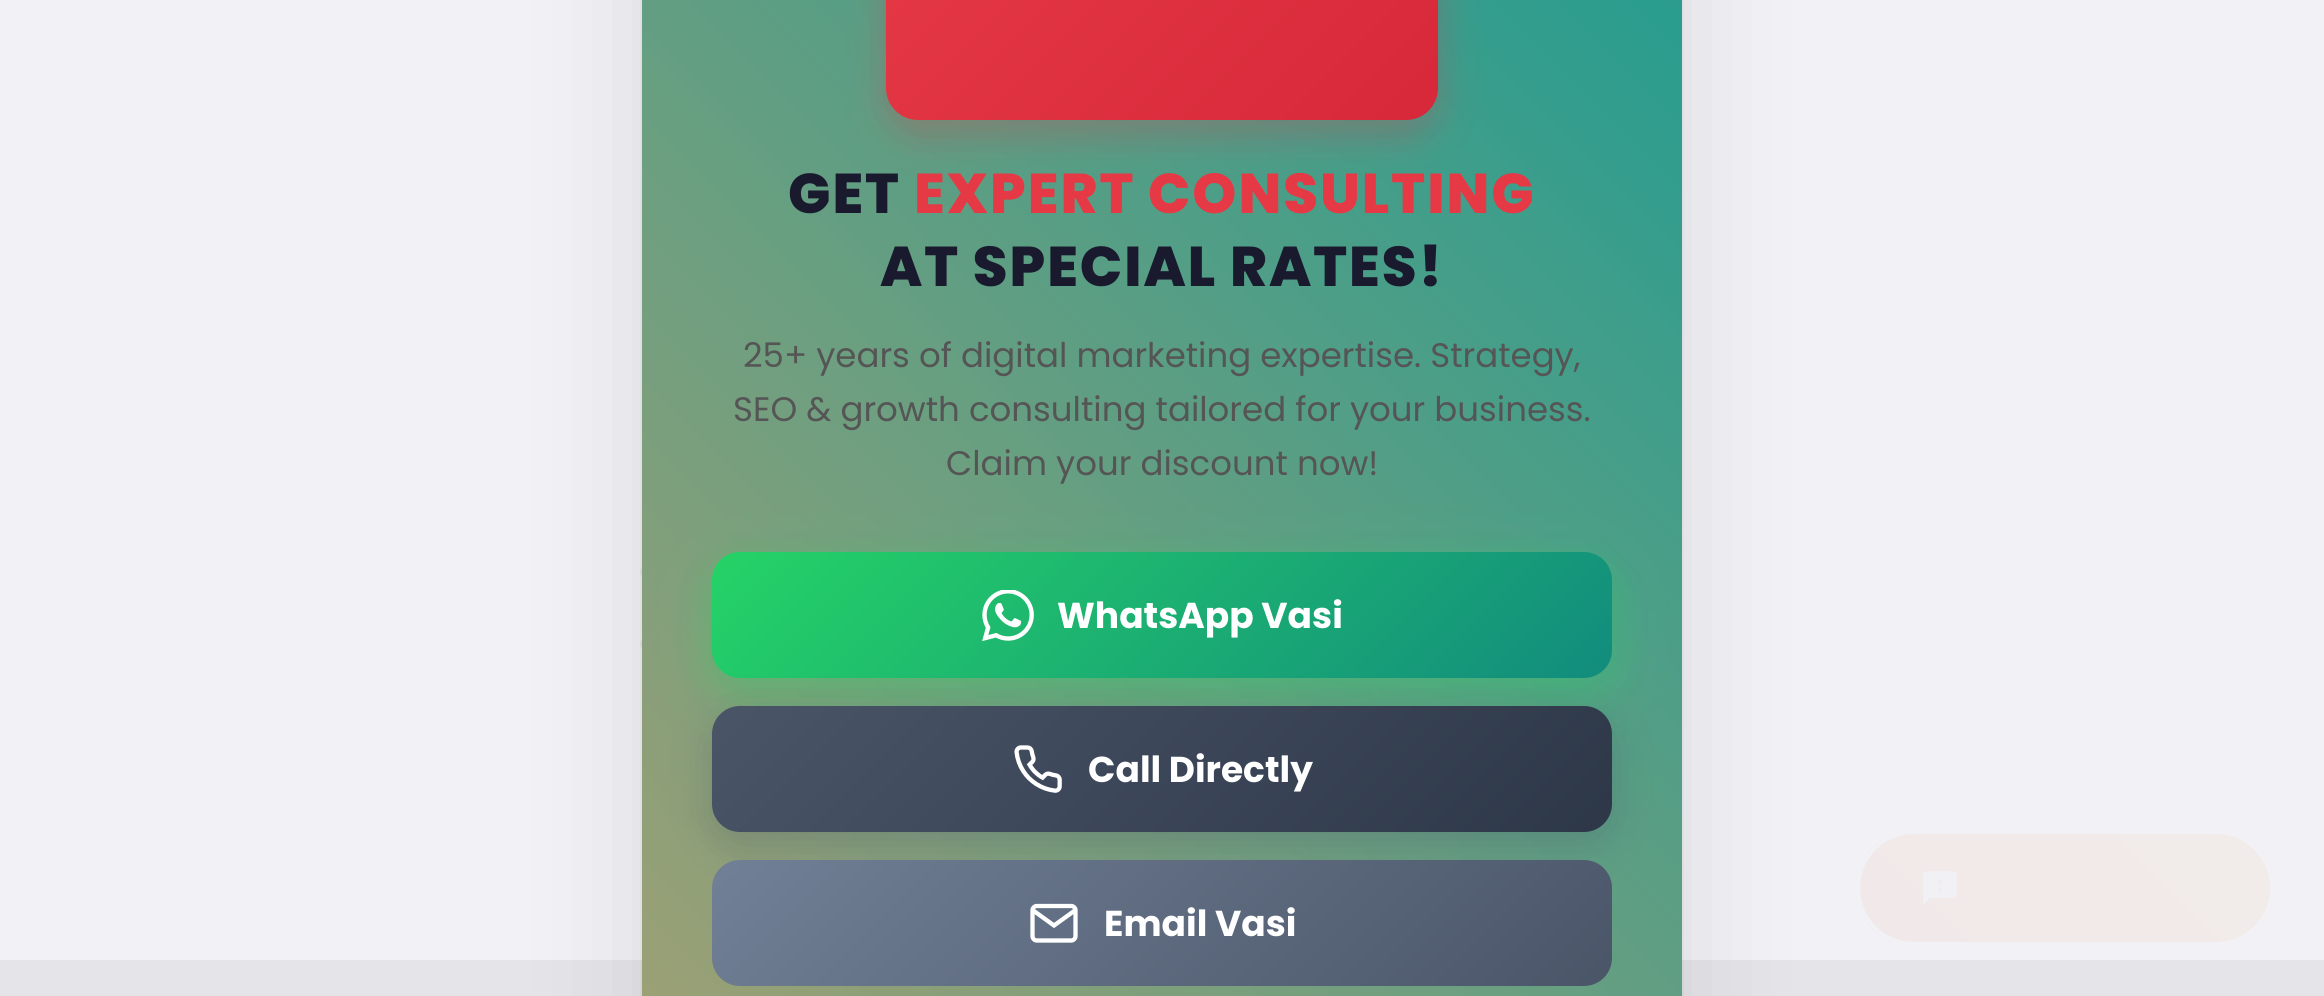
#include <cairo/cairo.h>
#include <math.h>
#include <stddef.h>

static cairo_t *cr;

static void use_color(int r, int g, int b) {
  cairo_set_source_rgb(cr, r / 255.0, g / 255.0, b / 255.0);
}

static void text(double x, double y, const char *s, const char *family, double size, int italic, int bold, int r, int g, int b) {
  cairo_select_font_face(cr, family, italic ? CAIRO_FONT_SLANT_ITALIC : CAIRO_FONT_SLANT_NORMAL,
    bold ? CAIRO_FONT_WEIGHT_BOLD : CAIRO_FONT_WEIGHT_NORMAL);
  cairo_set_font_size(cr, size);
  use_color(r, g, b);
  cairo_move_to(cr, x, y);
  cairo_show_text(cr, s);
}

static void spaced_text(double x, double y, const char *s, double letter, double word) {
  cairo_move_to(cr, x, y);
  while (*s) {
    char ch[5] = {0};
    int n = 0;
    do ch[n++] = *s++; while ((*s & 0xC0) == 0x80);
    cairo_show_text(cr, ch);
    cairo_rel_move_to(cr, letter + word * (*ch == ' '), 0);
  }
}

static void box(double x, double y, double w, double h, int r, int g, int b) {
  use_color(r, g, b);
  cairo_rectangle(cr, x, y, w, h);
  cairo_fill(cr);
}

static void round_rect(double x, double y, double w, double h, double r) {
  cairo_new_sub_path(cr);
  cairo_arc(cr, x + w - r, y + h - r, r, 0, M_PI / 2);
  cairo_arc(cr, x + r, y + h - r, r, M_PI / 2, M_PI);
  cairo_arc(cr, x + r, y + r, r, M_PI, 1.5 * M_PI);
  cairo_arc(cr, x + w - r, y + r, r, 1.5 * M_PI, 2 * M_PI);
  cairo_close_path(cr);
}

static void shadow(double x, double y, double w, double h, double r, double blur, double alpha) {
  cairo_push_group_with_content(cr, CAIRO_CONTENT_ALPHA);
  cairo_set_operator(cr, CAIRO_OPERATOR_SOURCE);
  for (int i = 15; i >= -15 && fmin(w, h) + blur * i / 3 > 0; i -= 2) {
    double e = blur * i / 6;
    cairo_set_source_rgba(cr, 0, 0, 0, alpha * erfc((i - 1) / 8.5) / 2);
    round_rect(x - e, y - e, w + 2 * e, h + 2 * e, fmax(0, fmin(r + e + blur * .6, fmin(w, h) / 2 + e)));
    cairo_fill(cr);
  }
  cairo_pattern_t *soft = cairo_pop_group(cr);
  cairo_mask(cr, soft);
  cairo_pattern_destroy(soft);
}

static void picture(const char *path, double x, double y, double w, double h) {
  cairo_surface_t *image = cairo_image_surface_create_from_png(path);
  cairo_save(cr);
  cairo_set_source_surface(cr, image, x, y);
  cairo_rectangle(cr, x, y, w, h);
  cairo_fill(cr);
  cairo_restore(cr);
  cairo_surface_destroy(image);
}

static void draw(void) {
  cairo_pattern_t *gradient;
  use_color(241, 241, 246);
  cairo_paint(cr);
  use_color(231, 231, 235);
  cairo_arc(cr, 646, 572, 6, 0, 2 * M_PI);
  cairo_fill(cr);
  cairo_arc(cr, 646, 644, 6, 0, 2 * M_PI);
  cairo_fill(cr);
  box(0, 960, 2324, 36, 228, 228, 233);
  cairo_rectangle(cr, 641, -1, 1042, 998);
  cairo_set_source_rgba(cr, 0, 0, 0, 0.03);
  cairo_stroke(cr);
  cairo_save(cr);
  round_rect(1856, 830, 418, 116, 58);
  cairo_clip(cr);
  gradient = cairo_pattern_create_linear(1936, 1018, 2195, 759);
  cairo_pattern_add_color_stop_rgba(gradient, 0, 0.945, 0.914, 0.914, 1);
  cairo_pattern_add_color_stop_rgba(gradient, 1, 0.945, 0.922, 0.914, 1);
  cairo_set_source(cr, gradient);
  cairo_pattern_destroy(gradient);
  cairo_rectangle(cr, 1860, 834, 410, 108);
  cairo_fill(cr);
  cairo_restore(cr);
  round_rect(1858, 832, 414, 112, 56);
  use_color(241, 241, 246);
  cairo_set_line_width(cr, 4);
  cairo_stroke(cr);
  use_color(0, 0, 0);
  shadow(642, -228, 1040, 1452, 48, 60, 0.1);
  cairo_save(cr);
  round_rect(642, -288, 1040, 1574, 48);
  cairo_clip(cr);
  gradient = cairo_pattern_create_linear(104, 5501, 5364, 241);
  cairo_pattern_add_color_stop_rgba(gradient, 0, 0.902, 0.224, 0.275, 1);
  cairo_pattern_add_color_stop_rgba(gradient, 0.33, 0.957, 0.635, 0.38, 1);
  cairo_pattern_add_color_stop_rgba(gradient, 0.67, 0.165, 0.616, 0.561, 1);
  cairo_pattern_add_color_stop_rgba(gradient, 1, 0.902, 0.224, 0.275, 1);
  cairo_set_source(cr, gradient);
  cairo_pattern_destroy(gradient);
  round_rect(638, -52, 1048, 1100, 52);
  cairo_fill(cr);
  cairo_restore(cr);
  use_color(230, 57, 70);
  shadow(886, -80, 552, 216, 32, 20, 0.3);
  gradient = cairo_pattern_create_linear(970, -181, 1354, 203);
  cairo_pattern_add_color_stop_rgba(gradient, 0, 0.902, 0.224, 0.275, 1);
  cairo_pattern_add_color_stop_rgba(gradient, 1, 0.839, 0.157, 0.224, 1);
  cairo_set_source(cr, gradient);
  cairo_pattern_destroy(gradient);
  round_rect(886, -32, 552, 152, 32);
  cairo_fill(cr);
  use_color(37, 211, 102);
  shadow(712, 568, 900, 126, 28, 25, 0.4);
  gradient = cairo_pattern_create_linear(906, 358, 1419, 871);
  cairo_pattern_add_color_stop_rgba(gradient, 0, 0.145, 0.827, 0.4, 1);
  cairo_pattern_add_color_stop_rgba(gradient, 1, 0.071, 0.549, 0.494, 1);
  cairo_set_source(cr, gradient);
  cairo_pattern_destroy(gradient);
  round_rect(712, 552, 900, 126, 28);
  cairo_fill(cr);
  picture("img_01.png", 982, 590, 52, 52);
  use_color(74, 85, 104);
  shadow(712, 718, 900, 126, 28, 20, 0.3);
  gradient = cairo_pattern_create_linear(906, 512, 1419, 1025);
  cairo_pattern_add_color_stop_rgba(gradient, 0, 0.29, 0.333, 0.408, 1);
  cairo_pattern_add_color_stop_rgba(gradient, 1, 0.176, 0.216, 0.282, 1);
  cairo_set_source(cr, gradient);
  cairo_pattern_destroy(gradient);
  round_rect(712, 706, 900, 126, 28);
  cairo_fill(cr);
  picture("img_02.png", 1014, 745, 48, 48);
  gradient = cairo_pattern_create_linear(906, 666, 1419, 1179);
  cairo_pattern_add_color_stop_rgba(gradient, 0, 0.443, 0.502, 0.588, 1);
  cairo_pattern_add_color_stop_rgba(gradient, 1, 0.29, 0.333, 0.408, 1);
  cairo_set_source(cr, gradient);
  cairo_pattern_destroy(gradient);
  round_rect(712, 860, 900, 126, 28);
  cairo_fill(cr);
  cairo_new_path(cr);
  cairo_move_to(cr, 1036.5, 906);
  cairo_line_to(cr, 1071.5, 906);
  cairo_curve_to(cr, 1073.5, 906, 1075.5, 908, 1075.5, 910);
  cairo_line_to(cr, 1075.5, 936);
  cairo_curve_to(cr, 1075.5, 938.5, 1073.5, 940.5, 1071.5, 940.5);
  cairo_line_to(cr, 1036.5, 940.5);
  cairo_curve_to(cr, 1034.5, 940.5, 1032.5, 938.5, 1032.5, 936);
  cairo_line_to(cr, 1032.5, 910);
  cairo_curve_to(cr, 1032.5, 908, 1034.5, 906, 1036.5, 906);
  cairo_close_path(cr);
  cairo_move_to(cr, 1075.5, 910);
  cairo_line_to(cr, 1054, 925.5);
  cairo_line_to(cr, 1032.5, 910);
  use_color(255, 255, 255);
  cairo_set_line_width(cr, 4.3);
  cairo_stroke(cr);
  picture("img_03.png", 1923, 871, 34, 34);
  cairo_select_font_face(cr, "Poppins ExtraBold", CAIRO_FONT_SLANT_NORMAL, CAIRO_FONT_WEIGHT_NORMAL);
  cairo_set_font_size(cr, 56);
  use_color(26, 26, 46);
  spaced_text(788, 213, "GET", 2, 0);
  use_color(230, 57, 70);
  spaced_text(914, 213, "EXPERT CONSULTING", 2, 0);
  use_color(26, 26, 46);
  spaced_text(880, 286, "AT SPECIAL RATES!", 2, 0);
  text(743, 367, "25+ years of digital marketing expertise. Strategy,", "Poppins", 34, 0, 0, 85, 85, 85);
  text(733, 421, "SEO & growth consulting tailored for your business.", "Poppins", 34, 0, 0, 85, 85, 85);
  text(946, 475, "Claim your discount now!", "Poppins", 34, 0, 0, 85, 85, 85);
  text(1057, 628, "WhatsApp Vasi", "Poppins", 36, 0, 1, 255, 255, 255);
  text(1088, 782, "Call Directly", "Poppins", 36, 0, 1, 255, 255, 255);
  text(1104, 936, "Email Vasi", "Poppins", 36, 0, 1, 255, 255, 255);
}

int main(void) {
  cairo_surface_t *surface = cairo_image_surface_create(CAIRO_FORMAT_RGB24, 2324, 996);
  cr = cairo_create(surface);
  cairo_font_options_t *options = cairo_font_options_create();
  cairo_font_options_set_hint_metrics(options, CAIRO_HINT_METRICS_OFF);
  cairo_font_options_set_hint_style(options, CAIRO_HINT_STYLE_NONE);
  cairo_set_font_options(cr, options);
  cairo_set_miter_limit(cr, 4);
  draw();
  cairo_surface_write_to_png(surface, "out.png");
  cairo_font_options_destroy(options);
  cairo_destroy(cr);
  cairo_surface_destroy(surface);
  return 0;
}
